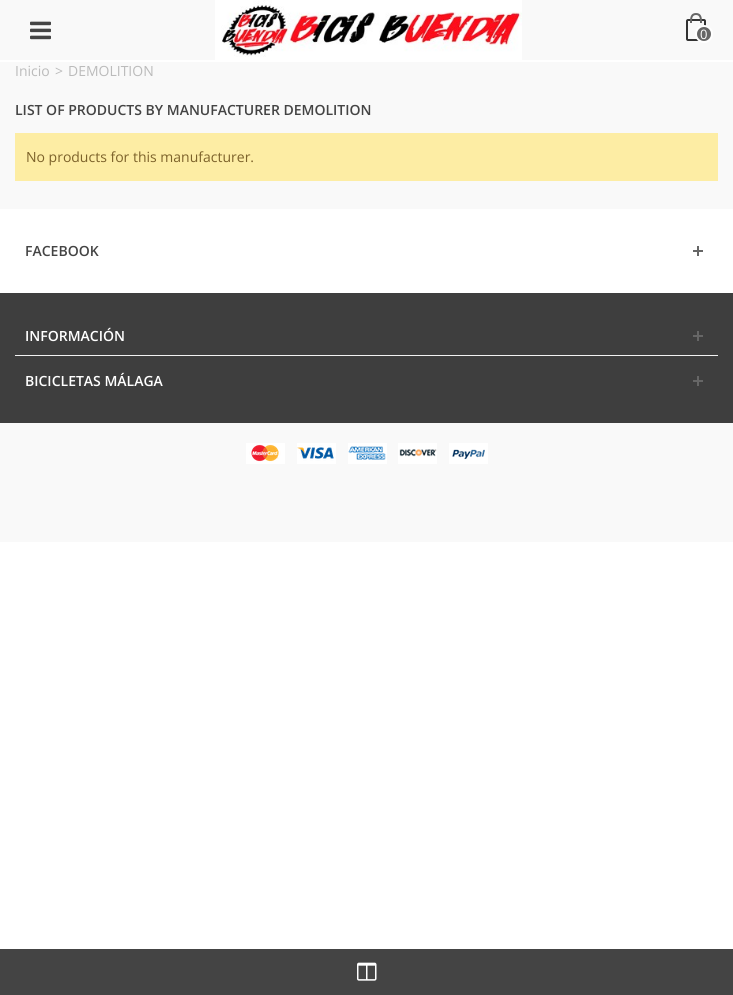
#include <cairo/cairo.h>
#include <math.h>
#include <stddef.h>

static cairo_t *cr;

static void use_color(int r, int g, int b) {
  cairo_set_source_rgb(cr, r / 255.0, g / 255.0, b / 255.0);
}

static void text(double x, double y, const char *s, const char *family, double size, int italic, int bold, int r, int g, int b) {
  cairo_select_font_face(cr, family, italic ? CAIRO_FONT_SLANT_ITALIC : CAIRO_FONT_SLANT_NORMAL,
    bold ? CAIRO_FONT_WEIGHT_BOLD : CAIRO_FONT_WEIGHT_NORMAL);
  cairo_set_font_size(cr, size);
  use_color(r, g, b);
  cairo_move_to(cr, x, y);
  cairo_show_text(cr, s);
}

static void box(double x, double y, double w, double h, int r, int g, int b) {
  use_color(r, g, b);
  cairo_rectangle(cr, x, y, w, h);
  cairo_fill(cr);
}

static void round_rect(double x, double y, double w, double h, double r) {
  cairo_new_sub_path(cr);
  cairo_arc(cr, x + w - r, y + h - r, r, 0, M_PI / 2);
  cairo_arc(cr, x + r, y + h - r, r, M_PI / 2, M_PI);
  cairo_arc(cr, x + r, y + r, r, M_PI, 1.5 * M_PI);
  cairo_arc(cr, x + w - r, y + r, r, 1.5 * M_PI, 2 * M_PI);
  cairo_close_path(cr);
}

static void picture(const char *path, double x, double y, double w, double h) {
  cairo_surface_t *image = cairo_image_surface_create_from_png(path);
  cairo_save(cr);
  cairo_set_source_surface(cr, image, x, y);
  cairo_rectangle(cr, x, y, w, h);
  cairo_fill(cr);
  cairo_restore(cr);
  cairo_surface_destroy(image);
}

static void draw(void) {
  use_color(255, 255, 255);
  cairo_paint(cr);
  box(0, 62, 733, 480, 249, 249, 249);
  box(0, 0, 733, 60, 249, 249, 249);
  picture("img_01.png", 30, 21, 21, 19);
  picture("img_02.png", 215, 0, 307, 60);
  round_rect(687, 20, 18, 20, 1);
  use_color(51, 51, 51);
  cairo_stroke(cr);
  use_color(102, 102, 102);
  cairo_set_fill_rule(cr, CAIRO_FILL_RULE_EVEN_ODD);
  cairo_new_path(cr);
  cairo_move_to(cr, 696, 13);
  cairo_curve_to(cr, 702, 13, 702, 18.5, 702, 23);
  cairo_line_to(cr, 690, 23);
  cairo_curve_to(cr, 690, 18.5, 690, 13, 696, 13);
  cairo_close_path(cr);
  cairo_move_to(cr, 696, 15);
  cairo_curve_to(cr, 700.5, 15, 700, 20, 700, 23);
  cairo_line_to(cr, 692, 23);
  cairo_curve_to(cr, 692, 20, 691.5, 15, 696, 15);
  cairo_close_path(cr);
  cairo_fill(cr);
  cairo_arc(cr, 704, 34, 8, 0, 2 * M_PI);
  cairo_fill_preserve(cr);
  use_color(255, 255, 255);
  cairo_stroke(cr);
  box(15, 133, 703, 48, 253, 237, 164);
  box(0, 209, 733, 84, 255, 255, 255);
  picture("img_03.png", 693, 246, 10, 10);
  box(0, 293, 733, 130, 62, 62, 62);
  box(15, 355, 703, 1, 242, 242, 242);
  picture("img_04.png", 693, 331, 10, 10);
  picture("img_04.png", 693, 376, 10, 10);
  picture("img_05.png", 246, 443, 242, 21);
  box(0, 949, 733, 46, 68, 68, 68);
  picture("img_06.png", 357, 962, 20, 19);
  text(700, 39, "0", "Open Sans", 13, 0, 0, 255, 255, 255);
  text(15, 76, "Inicio", "Open Sans", 14, 0, 0, 187, 187, 187);
  text(55, 76, ">", "Open Sans", 14, 0, 0, 187, 187, 187);
  text(68, 76, "DEMOLITION", "Open Sans", 14, 0, 0, 187, 187, 187);
  text(15, 115, "LIST OF PRODUCTS BY MANUFACTURER DEMOLITION", "Open Sans SemiBold", 14, 0, 0, 68, 68, 68);
  text(26, 162, "No products for this manufacturer.", "Open Sans", 14, 0, 0, 124, 98, 42);
  text(25, 256, "FACEBOOK", "Open Sans SemiBold", 14, 0, 0, 68, 68, 68);
  text(25, 341, "INFORMACIÓN", "Open Sans SemiBold", 14, 0, 0, 255, 255, 255);
  text(25, 386, "BICICLETAS MÁLAGA", "Open Sans SemiBold", 14, 0, 0, 255, 255, 255);
}

int main(void) {
  cairo_surface_t *surface = cairo_image_surface_create(CAIRO_FORMAT_RGB24, 733, 995);
  cr = cairo_create(surface);
  cairo_font_options_t *options = cairo_font_options_create();
  cairo_font_options_set_hint_metrics(options, CAIRO_HINT_METRICS_OFF);
  cairo_font_options_set_hint_style(options, CAIRO_HINT_STYLE_NONE);
  cairo_set_font_options(cr, options);
  cairo_set_miter_limit(cr, 4);
  draw();
  cairo_surface_write_to_png(surface, "out.png");
  cairo_font_options_destroy(options);
  cairo_destroy(cr);
  cairo_surface_destroy(surface);
  return 0;
}
